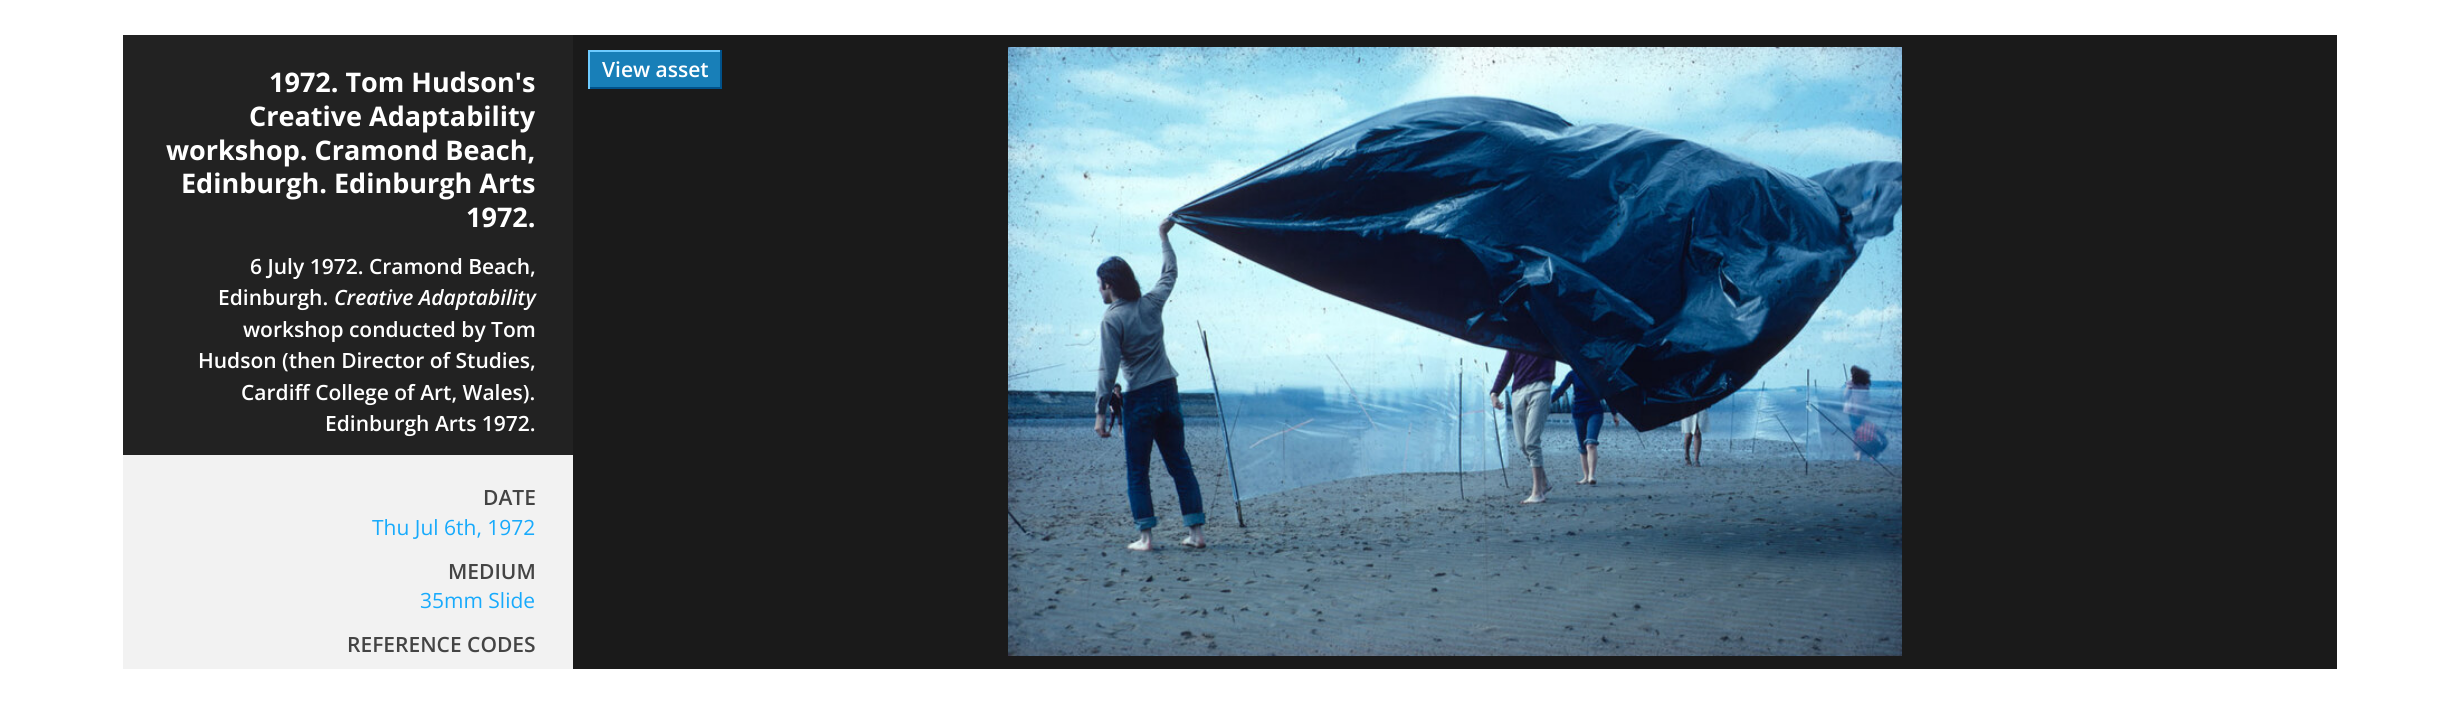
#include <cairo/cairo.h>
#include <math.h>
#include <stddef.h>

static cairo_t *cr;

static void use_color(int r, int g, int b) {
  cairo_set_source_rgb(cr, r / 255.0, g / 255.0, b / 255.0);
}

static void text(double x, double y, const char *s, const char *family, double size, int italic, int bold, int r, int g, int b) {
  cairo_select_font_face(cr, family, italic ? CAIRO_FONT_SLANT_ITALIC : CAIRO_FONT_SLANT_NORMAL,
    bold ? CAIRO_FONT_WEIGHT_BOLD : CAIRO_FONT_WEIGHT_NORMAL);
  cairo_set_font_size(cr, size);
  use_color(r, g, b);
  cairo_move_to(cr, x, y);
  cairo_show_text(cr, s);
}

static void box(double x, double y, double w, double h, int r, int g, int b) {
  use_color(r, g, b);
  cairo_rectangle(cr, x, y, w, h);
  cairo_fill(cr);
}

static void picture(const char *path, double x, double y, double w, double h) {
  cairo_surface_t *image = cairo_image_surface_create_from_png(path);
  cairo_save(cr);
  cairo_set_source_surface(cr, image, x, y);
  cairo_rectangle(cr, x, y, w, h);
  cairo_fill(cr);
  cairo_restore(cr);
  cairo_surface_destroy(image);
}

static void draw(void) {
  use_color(255, 255, 255);
  cairo_paint(cr);
  box(123, 455, 450, 214, 242, 242, 242);
  box(123, 35, 450, 420, 34, 34, 34);
  box(573, 35, 1764, 634, 26, 26, 26);
  box(590, 52, 130, 35, 24, 127, 184);
  box(588, 50, 134, 2, 109, 203, 255);
  box(720, 50, 2, 39, 0, 82, 139);
  box(588, 87, 134, 2, 0, 82, 139);
  box(588, 50, 2, 39, 109, 203, 255);
  picture("img_01.png", 1008, 47, 894, 609);
  text(269, 92, "1972. Tom Hudson's", "Open Sans", 27, 0, 1, 255, 255, 255);
  text(249, 126, "Creative Adaptability", "Open Sans", 27, 0, 1, 255, 255, 255);
  text(166, 160, "workshop. Cramond Beach,", "Open Sans", 27, 0, 1, 255, 255, 255);
  text(181, 193, "Edinburgh. Edinburgh Arts", "Open Sans", 27, 0, 1, 255, 255, 255);
  text(466, 227, "1972.", "Open Sans", 27, 0, 1, 255, 255, 255);
  text(250, 274, "6 July 1972. Cramond Beach,", "Open Sans SemiBold", 21, 0, 0, 255, 255, 255);
  text(218, 305, "Edinburgh.", "Open Sans SemiBold", 21, 0, 0, 255, 255, 255);
  text(334, 305, "Creative Adaptability", "Open Sans SemiBold", 21, 1, 0, 255, 255, 255);
  text(243, 337, "workshop conducted by Tom", "Open Sans SemiBold", 21, 0, 0, 255, 255, 255);
  text(198, 368, "Hudson (then Director of Studies,", "Open Sans SemiBold", 21, 0, 0, 255, 255, 255);
  text(241, 400, "Cardiff College of Art, Wales).", "Open Sans SemiBold", 21, 0, 0, 255, 255, 255);
  text(325, 431, "Edinburgh Arts 1972.", "Open Sans SemiBold", 21, 0, 0, 255, 255, 255);
  text(483, 505, "DATE", "Open Sans SemiBold", 21, 0, 0, 68, 68, 68);
  text(372, 535, "Thu Jul 6th, 1972", "Open Sans", 21, 0, 0, 23, 170, 252);
  text(448, 579, "MEDIUM", "Open Sans SemiBold", 21, 0, 0, 68, 68, 68);
  text(420, 608, "35mm Slide", "Open Sans", 21, 0, 0, 23, 170, 252);
  text(347, 652, "REFERENCE CODES", "Open Sans SemiBold", 21, 0, 0, 68, 68, 68);
  text(602, 77, "View asset", "Open Sans SemiBold", 21, 0, 0, 255, 255, 255);
}

int main(void) {
  cairo_surface_t *surface = cairo_image_surface_create(CAIRO_FORMAT_RGB24, 2459, 703);
  cr = cairo_create(surface);
  cairo_font_options_t *options = cairo_font_options_create();
  cairo_font_options_set_hint_metrics(options, CAIRO_HINT_METRICS_OFF);
  cairo_font_options_set_hint_style(options, CAIRO_HINT_STYLE_NONE);
  cairo_set_font_options(cr, options);
  cairo_set_miter_limit(cr, 4);
  draw();
  cairo_surface_write_to_png(surface, "out.png");
  cairo_font_options_destroy(options);
  cairo_destroy(cr);
  cairo_surface_destroy(surface);
  return 0;
}
